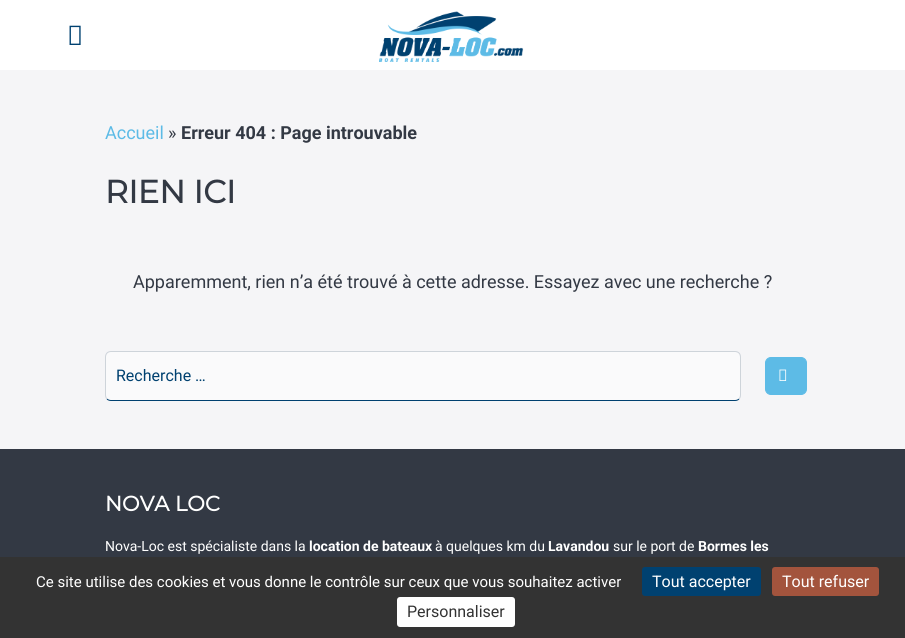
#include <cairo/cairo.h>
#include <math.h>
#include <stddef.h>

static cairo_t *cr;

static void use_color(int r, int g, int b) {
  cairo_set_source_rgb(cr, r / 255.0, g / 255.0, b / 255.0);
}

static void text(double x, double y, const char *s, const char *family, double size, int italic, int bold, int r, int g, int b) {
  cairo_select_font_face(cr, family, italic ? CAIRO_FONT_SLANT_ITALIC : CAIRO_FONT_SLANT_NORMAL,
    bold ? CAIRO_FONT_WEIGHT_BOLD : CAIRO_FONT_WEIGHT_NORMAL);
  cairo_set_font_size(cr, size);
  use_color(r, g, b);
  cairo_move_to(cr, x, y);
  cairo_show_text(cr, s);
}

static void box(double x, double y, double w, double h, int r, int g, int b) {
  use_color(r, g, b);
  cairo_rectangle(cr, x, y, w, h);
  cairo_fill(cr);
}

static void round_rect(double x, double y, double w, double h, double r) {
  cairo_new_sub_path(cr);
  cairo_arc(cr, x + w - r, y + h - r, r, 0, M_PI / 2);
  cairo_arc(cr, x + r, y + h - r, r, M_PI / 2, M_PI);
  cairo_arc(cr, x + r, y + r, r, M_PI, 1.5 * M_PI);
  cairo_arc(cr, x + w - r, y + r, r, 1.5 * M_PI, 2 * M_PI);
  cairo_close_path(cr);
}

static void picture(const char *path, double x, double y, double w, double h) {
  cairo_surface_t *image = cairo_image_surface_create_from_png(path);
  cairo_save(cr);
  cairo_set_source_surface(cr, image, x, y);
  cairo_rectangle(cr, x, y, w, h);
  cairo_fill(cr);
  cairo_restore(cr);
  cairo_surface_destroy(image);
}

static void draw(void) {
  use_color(255, 255, 255);
  cairo_paint(cr);
  picture("img_01.png", 69, 25, 12, 20);
  picture("img_02.png", 379, 11, 145, 51);
  box(0, 70, 905, 379, 245, 245, 247);
  use_color(250, 250, 251);
  round_rect(106, 352, 634, 48, 5);
  cairo_fill(cr);
  cairo_new_path(cr);
  cairo_move_to(cr, 739, 399);
  cairo_curve_to(cr, 738, 400, 736.5, 400.5, 735, 400.5);
  cairo_line_to(cr, 111, 400.5);
  cairo_curve_to(cr, 109.5, 400.5, 108, 400, 107, 399);
  use_color(0, 65, 112);
  cairo_set_line_width(cr, 1);
  cairo_stroke(cr);
  cairo_new_path(cr);
  cairo_move_to(cr, 107, 399);
  cairo_curve_to(cr, 106, 398, 105.5, 396.5, 105.5, 395);
  cairo_line_to(cr, 105.5, 357);
  cairo_curve_to(cr, 105.5, 355.5, 106, 354, 107, 353);
  cairo_curve_to(cr, 108, 352, 109.5, 351.5, 111, 351.5);
  cairo_line_to(cr, 735, 351.5);
  cairo_curve_to(cr, 736.5, 351.5, 738, 352, 739, 353);
  cairo_curve_to(cr, 740, 354, 740.5, 355.5, 740.5, 357);
  cairo_line_to(cr, 740.5, 395);
  cairo_curve_to(cr, 740.5, 396.5, 740, 398, 739, 399);
  use_color(206, 212, 218);
  cairo_stroke(cr);
  use_color(93, 187, 230);
  round_rect(765.5, 357.5, 41, 37, 5.5);
  cairo_fill_preserve(cr);
  cairo_stroke(cr);
  picture("img_03.png", 779, 369, 8, 12);
  box(0, 449, 905, 108, 51, 57, 68);
  box(0, 557, 905, 81, 51, 51, 51);
  use_color(0, 65, 112);
  round_rect(642, 567, 119, 29, 3);
  cairo_fill(cr);
  use_color(163, 84, 61);
  round_rect(772, 567, 107, 29, 3);
  cairo_fill(cr);
  use_color(255, 255, 255);
  round_rect(397, 597, 118, 30, 3);
  cairo_fill(cr);
  text(105, 139, "Accueil", "Roboto", 18, 0, 0, 93, 187, 230);
  text(168, 139, "»", "Roboto", 18, 0, 0, 51, 57, 68);
  text(181, 139, "Erreur 404 : Page introuvable", "Roboto", 18, 0, 1, 51, 57, 68);
  text(105, 203, "RIEN ICI", "Montserrat", 32, 0, 1, 51, 57, 68);
  text(133, 288, "Apparemment, rien n’a été trouvé à cette adresse. Essayez avec une recherche ?", "Roboto", 18, 0, 0, 51, 57, 68);
  text(116, 381, "Recherche …", "Roboto", 16, 0, 0, 0, 65, 112);
  text(105, 511, "NOVA LOC", "Montserrat", 21, 0, 1, 255, 255, 255);
  text(105, 551, "Nova-Loc est spécialiste dans la", "Roboto", 14, 0, 0, 255, 255, 255);
  text(309, 551, "location de bateaux", "Roboto", 14, 0, 1, 255, 255, 255);
  text(435, 551, "à quelques km du", "Roboto", 14, 0, 0, 255, 255, 255);
  text(548, 551, "Lavandou", "Roboto", 14, 0, 1, 255, 255, 255);
  text(613, 551, "sur le port de", "Roboto", 14, 0, 0, 255, 255, 255);
  text(698, 551, "Bormes les", "Roboto", 14, 0, 1, 255, 255, 255);
  text(36, 587, "Ce site utilise des cookies et vous donne le contrôle sur ceux que vous souhaitez activer", "Roboto", 15, 0, 0, 255, 255, 255);
  text(652, 587, "Tout accepter", "Roboto", 16, 0, 0, 255, 255, 255);
  text(782, 587, "Tout refuser", "Roboto", 16, 0, 0, 255, 255, 255);
  text(407, 617, "Personnaliser", "Roboto", 16, 0, 0, 51, 51, 51);
}

int main(void) {
  cairo_surface_t *surface = cairo_image_surface_create(CAIRO_FORMAT_RGB24, 905, 638);
  cr = cairo_create(surface);
  cairo_font_options_t *options = cairo_font_options_create();
  cairo_font_options_set_hint_metrics(options, CAIRO_HINT_METRICS_OFF);
  cairo_font_options_set_hint_style(options, CAIRO_HINT_STYLE_NONE);
  cairo_set_font_options(cr, options);
  cairo_set_miter_limit(cr, 4);
  draw();
  cairo_surface_write_to_png(surface, "out.png");
  cairo_font_options_destroy(options);
  cairo_destroy(cr);
  cairo_surface_destroy(surface);
  return 0;
}
